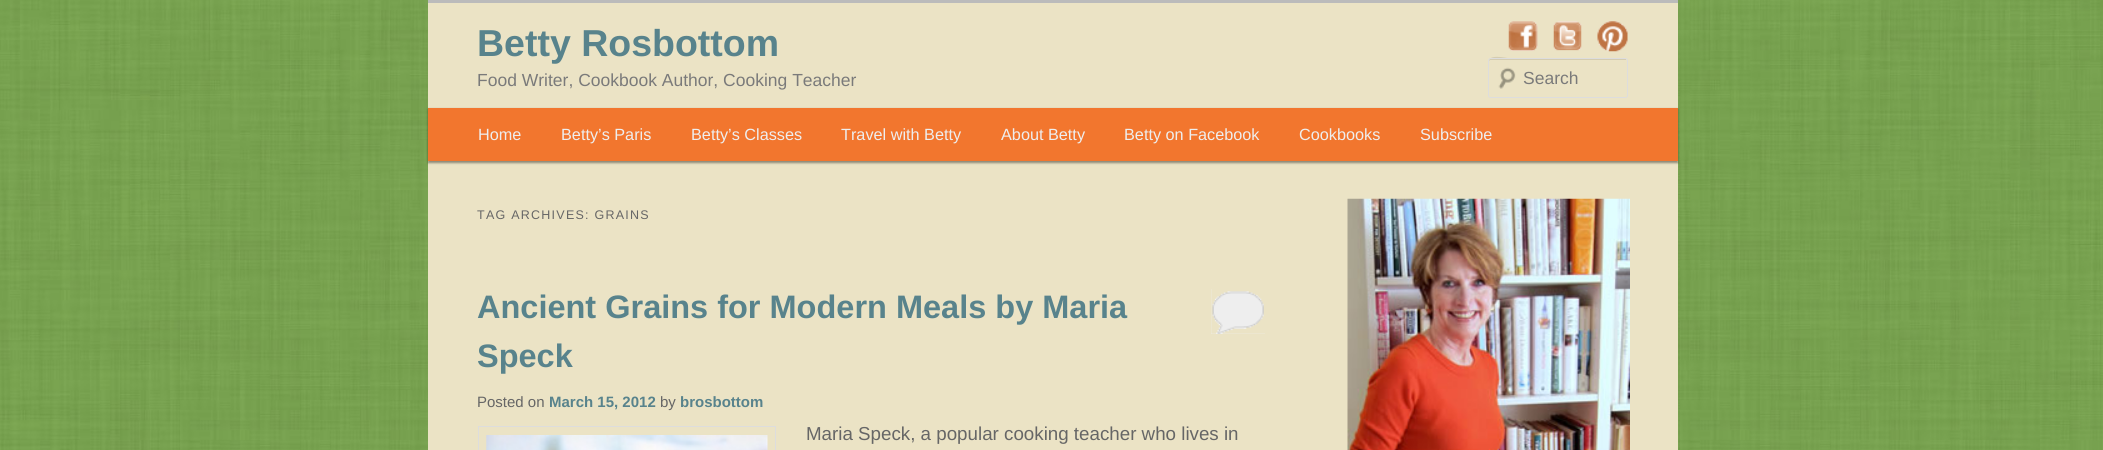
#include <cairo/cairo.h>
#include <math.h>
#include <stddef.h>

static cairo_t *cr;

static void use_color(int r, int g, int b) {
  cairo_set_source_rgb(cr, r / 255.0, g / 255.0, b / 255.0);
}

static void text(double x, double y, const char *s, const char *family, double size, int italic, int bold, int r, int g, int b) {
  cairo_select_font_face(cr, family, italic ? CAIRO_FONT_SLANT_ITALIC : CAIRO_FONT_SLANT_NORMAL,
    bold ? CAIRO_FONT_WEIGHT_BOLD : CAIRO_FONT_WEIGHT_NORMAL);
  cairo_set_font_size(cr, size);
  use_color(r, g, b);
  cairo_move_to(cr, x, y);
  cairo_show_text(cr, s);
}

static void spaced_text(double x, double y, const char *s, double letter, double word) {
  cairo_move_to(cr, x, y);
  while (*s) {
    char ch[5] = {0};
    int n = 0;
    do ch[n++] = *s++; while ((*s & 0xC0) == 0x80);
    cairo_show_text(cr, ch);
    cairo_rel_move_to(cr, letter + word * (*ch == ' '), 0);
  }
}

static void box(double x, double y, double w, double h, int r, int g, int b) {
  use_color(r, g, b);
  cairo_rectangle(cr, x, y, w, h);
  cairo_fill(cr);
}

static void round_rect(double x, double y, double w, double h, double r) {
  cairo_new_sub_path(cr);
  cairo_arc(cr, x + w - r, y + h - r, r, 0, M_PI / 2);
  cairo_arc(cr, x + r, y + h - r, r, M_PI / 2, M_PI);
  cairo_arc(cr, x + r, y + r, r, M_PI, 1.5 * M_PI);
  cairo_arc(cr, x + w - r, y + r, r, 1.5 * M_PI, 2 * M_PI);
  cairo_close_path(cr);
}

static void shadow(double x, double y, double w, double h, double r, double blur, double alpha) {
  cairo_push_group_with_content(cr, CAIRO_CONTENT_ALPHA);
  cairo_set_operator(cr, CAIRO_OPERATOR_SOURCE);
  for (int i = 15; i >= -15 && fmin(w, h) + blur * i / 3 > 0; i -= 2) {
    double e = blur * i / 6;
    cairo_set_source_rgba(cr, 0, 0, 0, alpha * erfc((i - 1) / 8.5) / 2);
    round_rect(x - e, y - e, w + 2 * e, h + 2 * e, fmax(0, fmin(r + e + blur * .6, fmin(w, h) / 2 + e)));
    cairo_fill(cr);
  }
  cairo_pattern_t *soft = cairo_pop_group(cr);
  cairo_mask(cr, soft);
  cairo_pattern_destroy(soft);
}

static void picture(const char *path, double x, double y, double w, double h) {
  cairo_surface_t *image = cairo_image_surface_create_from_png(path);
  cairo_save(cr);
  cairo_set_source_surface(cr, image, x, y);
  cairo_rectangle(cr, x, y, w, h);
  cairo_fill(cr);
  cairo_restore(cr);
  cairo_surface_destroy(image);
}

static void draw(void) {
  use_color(255, 255, 255);
  cairo_paint(cr);
  picture("img_01.png", 0, 0, 2103, 450);
  box(428, 3, 1250, 447, 235, 227, 197);
  box(428, 0, 1250, 3, 187, 187, 187);
  picture("img_02.png", 1508, 21, 30, 30);
  picture("img_03.png", 1553, 21, 29, 30);
  picture("img_04.png", 1597, 21, 31, 31);
  picture("img_05.png", 1498, 67, 18, 22);
  use_color(212, 204, 177);
  cairo_new_path(cr);
  cairo_move_to(cr, 1490, 60);
  cairo_line_to(cr, 1626, 60);
  cairo_line_to(cr, 1626, 61);
  cairo_line_to(cr, 1626, 59);
  cairo_line_to(cr, 1512, 59);
  cairo_curve_to(cr, 1512, 59, 1489, 53, 1489, 61);
  cairo_close_path(cr);
  cairo_fill(cr);
  round_rect(1488.5, 58.5, 139, 39, 2);
  use_color(221, 221, 221);
  cairo_set_line_width(cr, 1);
  cairo_stroke(cr);
  use_color(0, 0, 0);
  shadow(428, 109, 1250, 54, 0, 1, 0.4);
  box(428, 108, 1250, 53, 242, 118, 46);
  box(1211, 289, 54, 45, 238, 238, 238);
  picture("img_06.png", 1211, 289, 54, 45);
  cairo_rectangle(cr, 478.5, 426.5, 297, 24);
  use_color(221, 221, 221);
  cairo_stroke(cr);
  picture("img_07.png", 486, 435, 282, 15);
  picture("img_08.png", 1347, 198, 283, 252);
  text(477, 56, "Betty Rosbottom", "Liberation Sans", 37.5, 0, 1, 88, 131, 140);
  text(477, 86, "Food Writer, Cookbook Author, Cooking Teacher", "Liberation Sans", 17.5, 0, 0, 122, 122, 122);
  text(1523, 84, "Search", "Liberation Sans", 17.5, 0, 0, 122, 122, 122);
  text(478, 140, "Home", "Liberation Sans", 16.25, 0, 0, 238, 238, 238);
  text(561, 140, "Betty’s Paris", "Liberation Sans", 16.25, 0, 0, 238, 238, 238);
  text(691, 140, "Betty’s Classes", "Liberation Sans", 16.25, 0, 0, 238, 238, 238);
  text(841, 140, "Travel with Betty", "Liberation Sans", 16.25, 0, 0, 238, 238, 238);
  text(1001, 140, "About Betty", "Liberation Sans", 16.25, 0, 0, 238, 238, 238);
  text(1124, 140, "Betty on Facebook", "Liberation Sans", 16.25, 0, 0, 238, 238, 238);
  text(1299, 140, "Cookbooks", "Liberation Sans", 16.25, 0, 0, 238, 238, 238);
  text(1420, 140, "Subscribe", "Liberation Sans", 16.25, 0, 0, 238, 238, 238);
  cairo_set_font_size(cr, 12.5);
  use_color(102, 102, 102);
  spaced_text(477, 219, "TAG ARCHIVES: GRAINS", 1.25, 0);
  text(477, 318, "Ancient Grains for Modern Meals by Maria", "Liberation Sans", 32.5, 0, 1, 88, 131, 140);
  text(477, 367, "Speck", "Liberation Sans", 32.5, 0, 1, 88, 131, 140);
  text(477, 407, "Posted on", "Liberation Sans", 15, 0, 0, 102, 102, 102);
  text(549, 407, "March 15, 2012", "Liberation Sans", 15, 0, 1, 88, 131, 140);
  text(660, 407, "by", "Liberation Sans", 15, 0, 0, 102, 102, 102);
  text(680, 407, "brosbottom", "Liberation Sans", 15, 0, 1, 88, 131, 140);
  text(806, 440, "Maria Speck, a popular cooking teacher who lives in", "Liberation Sans", 18.75, 0, 0, 102, 102, 102);
}

int main(void) {
  cairo_surface_t *surface = cairo_image_surface_create(CAIRO_FORMAT_RGB24, 2103, 450);
  cr = cairo_create(surface);
  cairo_font_options_t *options = cairo_font_options_create();
  cairo_font_options_set_hint_metrics(options, CAIRO_HINT_METRICS_OFF);
  cairo_font_options_set_hint_style(options, CAIRO_HINT_STYLE_NONE);
  cairo_set_font_options(cr, options);
  cairo_set_miter_limit(cr, 4);
  draw();
  cairo_surface_write_to_png(surface, "out.png");
  cairo_font_options_destroy(options);
  cairo_destroy(cr);
  cairo_surface_destroy(surface);
  return 0;
}
